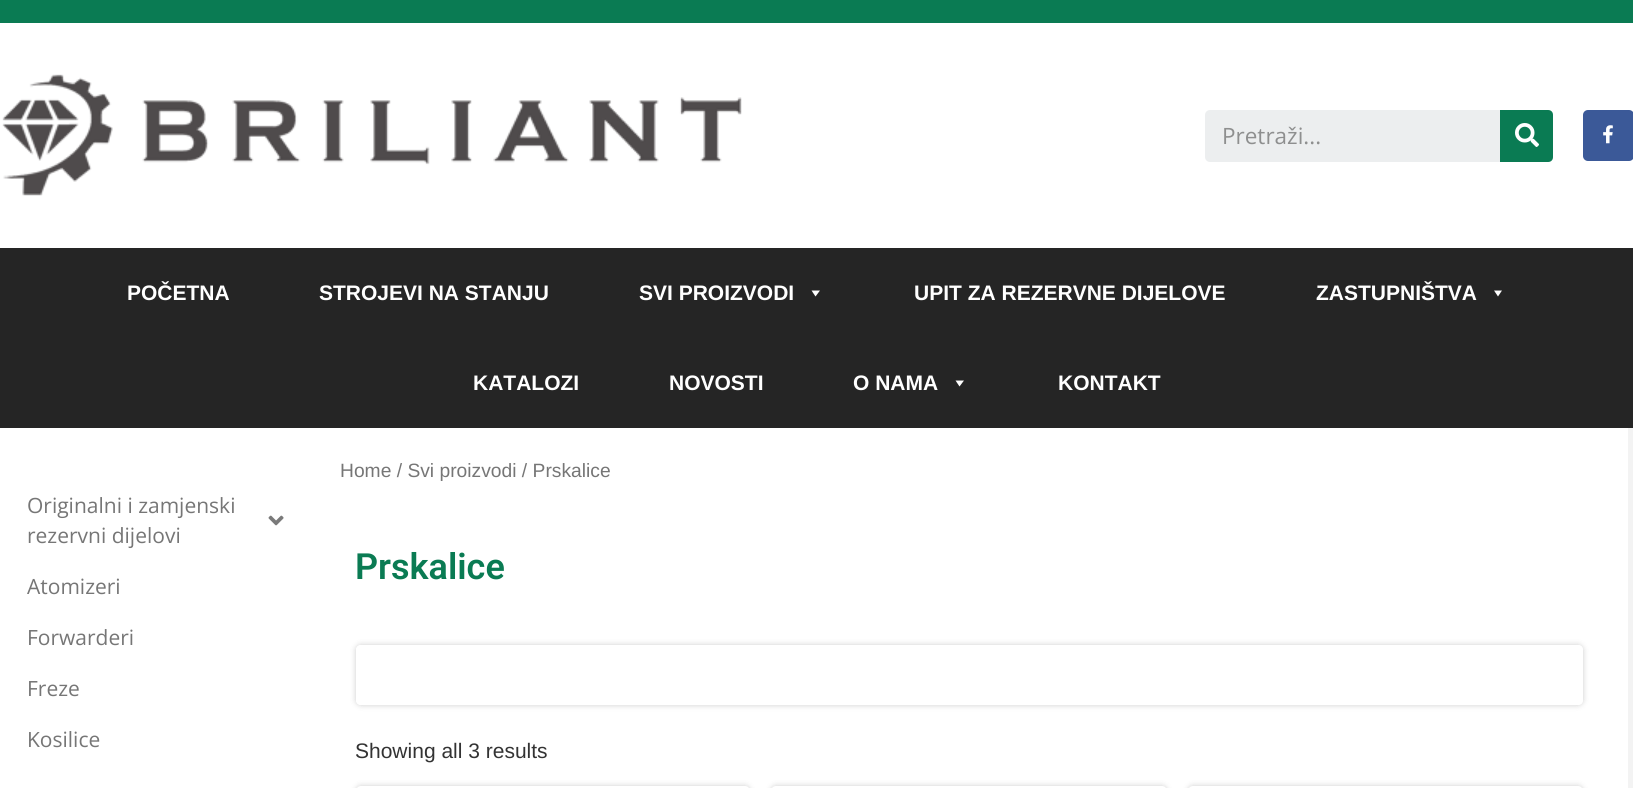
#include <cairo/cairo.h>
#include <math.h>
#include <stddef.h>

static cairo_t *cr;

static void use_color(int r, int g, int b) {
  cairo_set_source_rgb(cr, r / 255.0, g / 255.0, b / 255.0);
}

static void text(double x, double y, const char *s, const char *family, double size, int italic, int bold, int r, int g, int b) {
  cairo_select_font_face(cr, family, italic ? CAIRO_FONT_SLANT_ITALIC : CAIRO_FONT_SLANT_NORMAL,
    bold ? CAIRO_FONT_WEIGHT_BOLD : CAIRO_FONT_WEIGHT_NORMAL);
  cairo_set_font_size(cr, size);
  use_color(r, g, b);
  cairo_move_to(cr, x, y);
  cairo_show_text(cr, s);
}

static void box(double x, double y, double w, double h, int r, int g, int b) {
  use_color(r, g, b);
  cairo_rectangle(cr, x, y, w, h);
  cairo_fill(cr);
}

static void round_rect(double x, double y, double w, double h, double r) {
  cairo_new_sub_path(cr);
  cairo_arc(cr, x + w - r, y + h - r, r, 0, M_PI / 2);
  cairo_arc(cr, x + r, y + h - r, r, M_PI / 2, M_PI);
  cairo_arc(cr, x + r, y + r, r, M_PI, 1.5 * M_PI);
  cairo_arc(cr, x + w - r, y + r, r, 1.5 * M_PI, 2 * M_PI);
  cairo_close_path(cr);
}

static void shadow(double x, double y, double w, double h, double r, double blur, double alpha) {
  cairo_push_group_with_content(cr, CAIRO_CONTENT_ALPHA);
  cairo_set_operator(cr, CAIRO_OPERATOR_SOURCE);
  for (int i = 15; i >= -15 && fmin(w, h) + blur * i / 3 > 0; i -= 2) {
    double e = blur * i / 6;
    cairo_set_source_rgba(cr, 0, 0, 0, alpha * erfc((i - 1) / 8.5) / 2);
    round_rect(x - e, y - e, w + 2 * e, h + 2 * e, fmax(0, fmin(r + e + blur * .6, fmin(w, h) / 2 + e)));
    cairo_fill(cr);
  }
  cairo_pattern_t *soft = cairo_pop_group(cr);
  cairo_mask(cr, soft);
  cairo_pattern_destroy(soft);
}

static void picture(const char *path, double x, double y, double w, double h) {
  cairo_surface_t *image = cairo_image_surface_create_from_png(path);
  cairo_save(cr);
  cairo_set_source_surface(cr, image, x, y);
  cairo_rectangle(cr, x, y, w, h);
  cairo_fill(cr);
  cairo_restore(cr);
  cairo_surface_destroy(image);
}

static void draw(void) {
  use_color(255, 255, 255);
  cairo_paint(cr);
  box(0, 0, 1633, 23, 10, 123, 83);
  picture("img_01.png", 2, 74, 740, 122);
  use_color(236, 238, 239);
  round_rect(1205, 110, 348, 52, 5);
  cairo_fill(cr);
  use_color(10, 123, 83);
  cairo_new_path(cr);
  cairo_move_to(cr, 1500, 110);
  cairo_line_to(cr, 1548, 110);
  cairo_curve_to(cr, 1551, 110, 1553, 112, 1553, 115);
  cairo_line_to(cr, 1553, 157);
  cairo_curve_to(cr, 1553, 160, 1551, 162, 1548, 162);
  cairo_line_to(cr, 1500, 162);
  cairo_close_path(cr);
  cairo_fill(cr);
  picture("img_02.png", 1515, 123, 24, 24);
  use_color(59, 89, 152);
  round_rect(1583, 110, 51, 51, 5);
  cairo_fill(cr);
  picture("img_03.png", 1603, 125, 10, 19);
  box(0, 248, 1633, 180, 37, 37, 37);
  use_color(255, 255, 255);
  cairo_new_path(cr);
  cairo_move_to(cr, 820, 290.5);
  cairo_line_to(cr, 815.5, 296.5);
  cairo_line_to(cr, 811.5, 290.5);
  cairo_close_path(cr);
  cairo_fill(cr);
  cairo_new_path(cr);
  cairo_move_to(cr, 1502, 290.5);
  cairo_line_to(cr, 1498, 296.5);
  cairo_line_to(cr, 1494, 290.5);
  cairo_close_path(cr);
  cairo_fill(cr);
  cairo_new_path(cr);
  cairo_move_to(cr, 964, 380.5);
  cairo_line_to(cr, 959.5, 386.5);
  cairo_line_to(cr, 955.5, 380.5);
  cairo_close_path(cr);
  cairo_fill(cr);
  box(1628, 428, 5, 360, 243, 243, 243);
  picture("img_04.png", 268, 515, 16, 11);
  cairo_save(cr);
  cairo_set_fill_rule(cr, CAIRO_FILL_RULE_EVEN_ODD);
  cairo_new_path(cr);
  cairo_move_to(cr, 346, 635);
  cairo_line_to(cr, 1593, 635);
  cairo_line_to(cr, 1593, 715);
  cairo_line_to(cr, 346, 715);
  cairo_close_path(cr);
  cairo_move_to(cr, 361, 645);
  cairo_line_to(cr, 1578, 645);
  cairo_curve_to(cr, 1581, 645, 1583, 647, 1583, 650);
  cairo_line_to(cr, 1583, 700);
  cairo_curve_to(cr, 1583, 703, 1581, 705, 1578, 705);
  cairo_line_to(cr, 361, 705);
  cairo_curve_to(cr, 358, 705, 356, 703, 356, 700);
  cairo_line_to(cr, 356, 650);
  cairo_curve_to(cr, 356, 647, 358, 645, 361, 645);
  cairo_close_path(cr);
  cairo_clip(cr);
  use_color(0, 0, 0);
  shadow(356, 645, 1227, 60, 5, 3, 0.2);
  cairo_restore(cr);
  use_color(0, 0, 0);
  shadow(356, 786, 394, 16, 5, 3, 0.2);
  use_color(255, 255, 255);
  round_rect(356, 786, 394, 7, 5);
  cairo_fill(cr);
  use_color(0, 0, 0);
  shadow(771, 786, 396, 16, 5, 3, 0.2);
  use_color(255, 255, 255);
  round_rect(771, 786, 396, 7, 5);
  cairo_fill(cr);
  use_color(0, 0, 0);
  shadow(1188, 786, 395, 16, 5, 3, 0.2);
  use_color(255, 255, 255);
  round_rect(1188, 786, 395, 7, 5);
  cairo_fill(cr);
  text(1222, 144, "Pretraži...", "Open Sans", 22.5, 0, 0, 142, 143, 143);
  text(127, 300, "POČETNA", "Liberation Sans", 21, 0, 1, 255, 255, 255);
  text(319, 300, "STROJEVI NA STANJU", "Liberation Sans", 21, 0, 1, 255, 255, 255);
  text(639, 300, "SVI PROIZVODI", "Liberation Sans", 21, 0, 1, 255, 255, 255);
  text(914, 300, "UPIT ZA REZERVNE DIJELOVE", "Liberation Sans", 21, 0, 1, 255, 255, 255);
  text(1316, 300, "ZASTUPNIŠTVA", "Liberation Sans", 21, 0, 1, 255, 255, 255);
  text(473, 390, "KATALOZI", "Liberation Sans", 21, 0, 1, 255, 255, 255);
  text(669, 390, "NOVOSTI", "Liberation Sans", 21, 0, 1, 255, 255, 255);
  text(853, 390, "O NAMA", "Liberation Sans", 21, 0, 1, 255, 255, 255);
  text(1058, 390, "KONTAKT", "Liberation Sans", 21, 0, 1, 255, 255, 255);
  text(27, 513, "Originalni i zamjenski", "Open Sans", 21, 0, 0, 118, 118, 118);
  text(27, 543, "rezervni dijelovi", "Open Sans", 21, 0, 0, 118, 118, 118);
  text(27, 594, "Atomizeri", "Open Sans", 21, 0, 0, 118, 118, 118);
  text(27, 645, "Forwarderi", "Open Sans", 21, 0, 0, 118, 118, 118);
  text(27, 696, "Freze", "Open Sans", 21, 0, 0, 118, 118, 118);
  text(27, 747, "Kosilice", "Open Sans", 21, 0, 0, 118, 118, 118);
  text(340, 477, "Home / Svi proizvodi / Prskalice", "Liberation Sans", 19.25, 0, 0, 118, 118, 118);
  text(355, 579, "Prskalice", "Roboto SemiBold", 36, 0, 0, 10, 123, 83);
  text(355, 758, "Showing all 3 results", "Liberation Sans", 21, 0, 0, 51, 51, 51);
}

int main(void) {
  cairo_surface_t *surface = cairo_image_surface_create(CAIRO_FORMAT_RGB24, 1633, 788);
  cr = cairo_create(surface);
  cairo_font_options_t *options = cairo_font_options_create();
  cairo_font_options_set_hint_metrics(options, CAIRO_HINT_METRICS_OFF);
  cairo_font_options_set_hint_style(options, CAIRO_HINT_STYLE_NONE);
  cairo_set_font_options(cr, options);
  cairo_set_miter_limit(cr, 4);
  draw();
  cairo_surface_write_to_png(surface, "out.png");
  cairo_font_options_destroy(options);
  cairo_destroy(cr);
  cairo_surface_destroy(surface);
  return 0;
}
